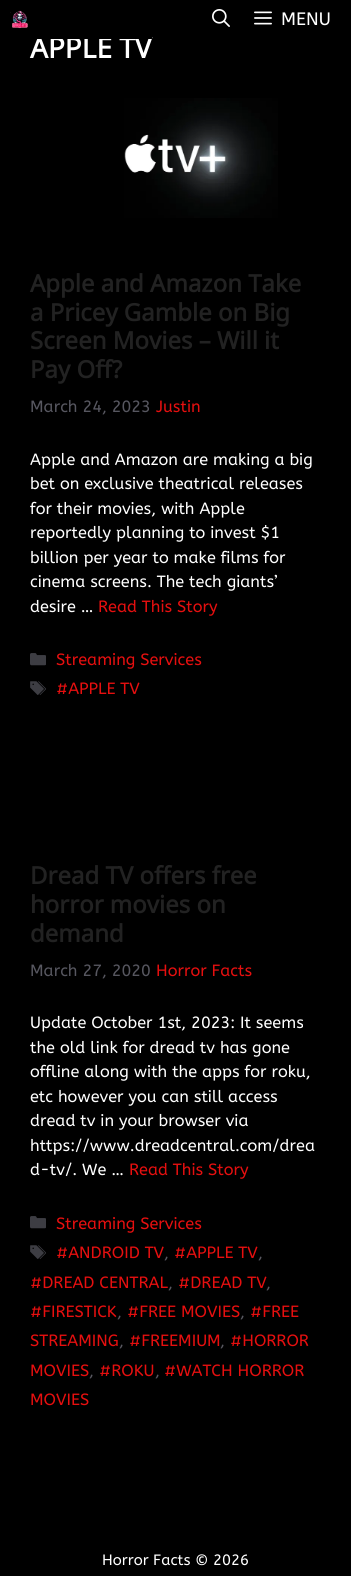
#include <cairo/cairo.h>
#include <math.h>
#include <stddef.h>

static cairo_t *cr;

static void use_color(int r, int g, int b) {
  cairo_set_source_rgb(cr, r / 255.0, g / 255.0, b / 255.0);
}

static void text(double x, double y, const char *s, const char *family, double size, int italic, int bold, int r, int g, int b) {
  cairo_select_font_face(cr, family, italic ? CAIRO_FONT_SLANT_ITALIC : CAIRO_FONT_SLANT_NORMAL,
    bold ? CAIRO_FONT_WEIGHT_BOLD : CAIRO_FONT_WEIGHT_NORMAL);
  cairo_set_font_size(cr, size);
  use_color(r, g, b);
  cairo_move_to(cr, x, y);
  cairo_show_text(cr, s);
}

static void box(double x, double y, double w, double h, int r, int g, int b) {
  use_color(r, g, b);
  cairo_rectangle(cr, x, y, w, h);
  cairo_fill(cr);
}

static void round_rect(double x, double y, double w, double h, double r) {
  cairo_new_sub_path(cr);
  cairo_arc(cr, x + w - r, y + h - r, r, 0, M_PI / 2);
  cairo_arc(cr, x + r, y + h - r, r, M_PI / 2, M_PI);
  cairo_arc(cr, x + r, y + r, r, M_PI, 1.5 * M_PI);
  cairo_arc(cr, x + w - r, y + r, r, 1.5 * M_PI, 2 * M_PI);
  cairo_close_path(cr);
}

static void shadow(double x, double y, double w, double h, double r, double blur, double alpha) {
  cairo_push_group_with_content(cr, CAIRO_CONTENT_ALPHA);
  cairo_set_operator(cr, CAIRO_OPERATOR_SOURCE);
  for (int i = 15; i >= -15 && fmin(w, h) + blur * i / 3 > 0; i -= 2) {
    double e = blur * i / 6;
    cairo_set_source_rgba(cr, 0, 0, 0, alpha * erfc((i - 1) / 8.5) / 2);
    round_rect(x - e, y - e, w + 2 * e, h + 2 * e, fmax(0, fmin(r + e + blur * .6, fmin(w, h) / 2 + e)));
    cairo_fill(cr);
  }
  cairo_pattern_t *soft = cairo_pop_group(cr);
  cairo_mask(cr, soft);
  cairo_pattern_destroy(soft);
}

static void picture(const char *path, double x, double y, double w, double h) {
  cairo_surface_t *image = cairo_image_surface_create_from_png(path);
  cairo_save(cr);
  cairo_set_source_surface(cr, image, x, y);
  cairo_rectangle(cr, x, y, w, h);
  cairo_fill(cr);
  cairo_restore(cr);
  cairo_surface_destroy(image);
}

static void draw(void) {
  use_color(0, 0, 0);
  cairo_paint(cr);
  shadow(2, 4, 347, 35, 0, 1, 0.2);
  picture("img_01.png", 10, 10, 18, 19);
  picture("img_02.png", 212, 9, 18, 18);
  picture("img_03.png", 254, 11, 18, 14);
  picture("img_04.png", 124, 98, 154, 120);
  picture("img_05.png", 30, 653, 16, 13);
  picture("img_06.png", 30, 681, 16, 14);
  picture("img_05.png", 30, 1216, 16, 13);
  picture("img_06.png", 30, 1245, 16, 14);
  text(281, 25, "MENU", "ABeeZee", 18, 0, 0, 255, 255, 255);
  text(30, 58, "APPLE TV", "Noto Sans Deseret", 28, 0, 1, 255, 255, 255);
  box(37, 37, 115, 2, 0, 0, 0);
  text(30, 292, "Apple and Amazon Take", "Noto Sans Deseret", 24, 0, 1, 34, 34, 34);
  text(30, 321, "a Pricey Gamble on Big", "Noto Sans Deseret", 24, 0, 1, 34, 34, 34);
  text(30, 349, "Screen Movies – Will it", "Noto Sans Deseret", 24, 0, 1, 34, 34, 34);
  text(30, 378, "Pay Off?", "Noto Sans Deseret", 24, 0, 1, 34, 34, 34);
  text(30, 412, "March 24, 2023", "ABeeZee", 16.3, 0, 0, 87, 87, 96);
  text(156, 412, "Justin", "ABeeZee", 16.3, 0, 0, 230, 15, 15);
  text(30, 465, "Apple and Amazon are making a big", "ABeeZee", 16.3, 0, 0, 255, 255, 255);
  text(30, 489, "bet on exclusive theatrical releases", "ABeeZee", 16.3, 0, 0, 255, 255, 255);
  text(30, 514, "for their movies, with Apple", "ABeeZee", 16.3, 0, 0, 255, 255, 255);
  text(30, 538, "reportedly planning to invest $1", "ABeeZee", 16.3, 0, 0, 255, 255, 255);
  text(30, 563, "billion per year to make films for", "ABeeZee", 16.3, 0, 0, 255, 255, 255);
  text(30, 587, "cinema screens. The tech giants’", "ABeeZee", 16.3, 0, 0, 255, 255, 255);
  text(30, 612, "desire …", "ABeeZee", 16.3, 0, 0, 255, 255, 255);
  text(98, 612, "Read This Story", "ABeeZee", 16.3, 0, 0, 230, 15, 15);
  text(56, 665, "Streaming Services", "ABeeZee", 16.3, 0, 0, 230, 15, 15);
  text(56, 694, "#APPLE TV", "ABeeZee", 16.3, 0, 0, 230, 15, 15);
  text(30, 884, "Dread TV offers free", "Noto Sans Deseret", 24, 0, 1, 34, 34, 34);
  text(30, 913, "horror movies on", "Noto Sans Deseret", 24, 0, 1, 34, 34, 34);
  text(30, 942, "demand", "Noto Sans Deseret", 24, 0, 1, 34, 34, 34);
  text(30, 976, "March 27, 2020", "ABeeZee", 16.3, 0, 0, 87, 87, 96);
  text(156, 976, "Horror Facts", "ABeeZee", 16.3, 0, 0, 230, 15, 15);
  text(30, 1028, "Update October 1st, 2023: It seems", "ABeeZee", 16.3, 0, 0, 255, 255, 255);
  text(30, 1053, "the old link for dread tv has gone", "ABeeZee", 16.3, 0, 0, 255, 255, 255);
  text(30, 1077, "offline along with the apps for roku,", "ABeeZee", 16.3, 0, 0, 255, 255, 255);
  text(30, 1102, "etc however you can still access", "ABeeZee", 16.3, 0, 0, 255, 255, 255);
  text(30, 1126, "dread tv in your browser via", "ABeeZee", 16.3, 0, 0, 255, 255, 255);
  text(30, 1151, "https://www.dreadcentral.com/drea", "ABeeZee", 16.3, 0, 0, 255, 255, 255);
  text(30, 1175, "d-tv/. We …", "ABeeZee", 16.3, 0, 0, 255, 255, 255);
  text(129, 1175, "Read This Story", "ABeeZee", 16.3, 0, 0, 230, 15, 15);
  text(56, 1229, "Streaming Services", "ABeeZee", 16.3, 0, 0, 230, 15, 15);
  text(56, 1258, "#ANDROID TV", "ABeeZee", 16.3, 0, 0, 230, 15, 15);
  text(164, 1258, ",", "ABeeZee", 16.3, 0, 0, 87, 87, 96);
  text(174, 1258, "#APPLE TV", "ABeeZee", 16.3, 0, 0, 230, 15, 15);
  text(258, 1258, ",", "ABeeZee", 16.3, 0, 0, 87, 87, 96);
  text(30, 1288, "#DREAD CENTRAL", "ABeeZee", 16.3, 0, 0, 230, 15, 15);
  text(168, 1288, ",", "ABeeZee", 16.3, 0, 0, 87, 87, 96);
  text(178, 1288, "#DREAD TV", "ABeeZee", 16.3, 0, 0, 230, 15, 15);
  text(266, 1288, ",", "ABeeZee", 16.3, 0, 0, 87, 87, 96);
  text(30, 1317, "#FIRESTICK", "ABeeZee", 16.3, 0, 0, 230, 15, 15);
  text(117, 1317, ",", "ABeeZee", 16.3, 0, 0, 87, 87, 96);
  text(127, 1317, "#FREE MOVIES", "ABeeZee", 16.3, 0, 0, 230, 15, 15);
  text(240, 1317, ",", "ABeeZee", 16.3, 0, 0, 87, 87, 96);
  text(250, 1317, "#FREE", "ABeeZee", 16.3, 0, 0, 230, 15, 15);
  text(30, 1346, "STREAMING", "ABeeZee", 16.3, 0, 0, 230, 15, 15);
  text(119, 1346, ",", "ABeeZee", 16.3, 0, 0, 87, 87, 96);
  text(129, 1346, "#FREEMIUM", "ABeeZee", 16.3, 0, 0, 230, 15, 15);
  text(220, 1346, ",", "ABeeZee", 16.3, 0, 0, 87, 87, 96);
  text(230, 1346, "#HORROR", "ABeeZee", 16.3, 0, 0, 230, 15, 15);
  text(30, 1376, "MOVIES", "ABeeZee", 16.3, 0, 0, 230, 15, 15);
  text(89, 1376, ",", "ABeeZee", 16.3, 0, 0, 87, 87, 96);
  text(99, 1376, "#ROKU", "ABeeZee", 16.3, 0, 0, 230, 15, 15);
  text(155, 1376, ",", "ABeeZee", 16.3, 0, 0, 87, 87, 96);
  text(164, 1376, "#WATCH HORROR", "ABeeZee", 16.3, 0, 0, 230, 15, 15);
  text(30, 1405, "MOVIES", "ABeeZee", 16.3, 0, 0, 230, 15, 15);
  text(102, 1565, "Horror Facts © 2026", "ABeeZee", 15, 0, 0, 255, 255, 255);
}

int main(void) {
  cairo_surface_t *surface = cairo_image_surface_create(CAIRO_FORMAT_RGB24, 351, 1576);
  cr = cairo_create(surface);
  cairo_font_options_t *options = cairo_font_options_create();
  cairo_font_options_set_hint_metrics(options, CAIRO_HINT_METRICS_OFF);
  cairo_font_options_set_hint_style(options, CAIRO_HINT_STYLE_NONE);
  cairo_set_font_options(cr, options);
  cairo_set_miter_limit(cr, 4);
  draw();
  cairo_surface_write_to_png(surface, "out.png");
  cairo_font_options_destroy(options);
  cairo_destroy(cr);
  cairo_surface_destroy(surface);
  return 0;
}
